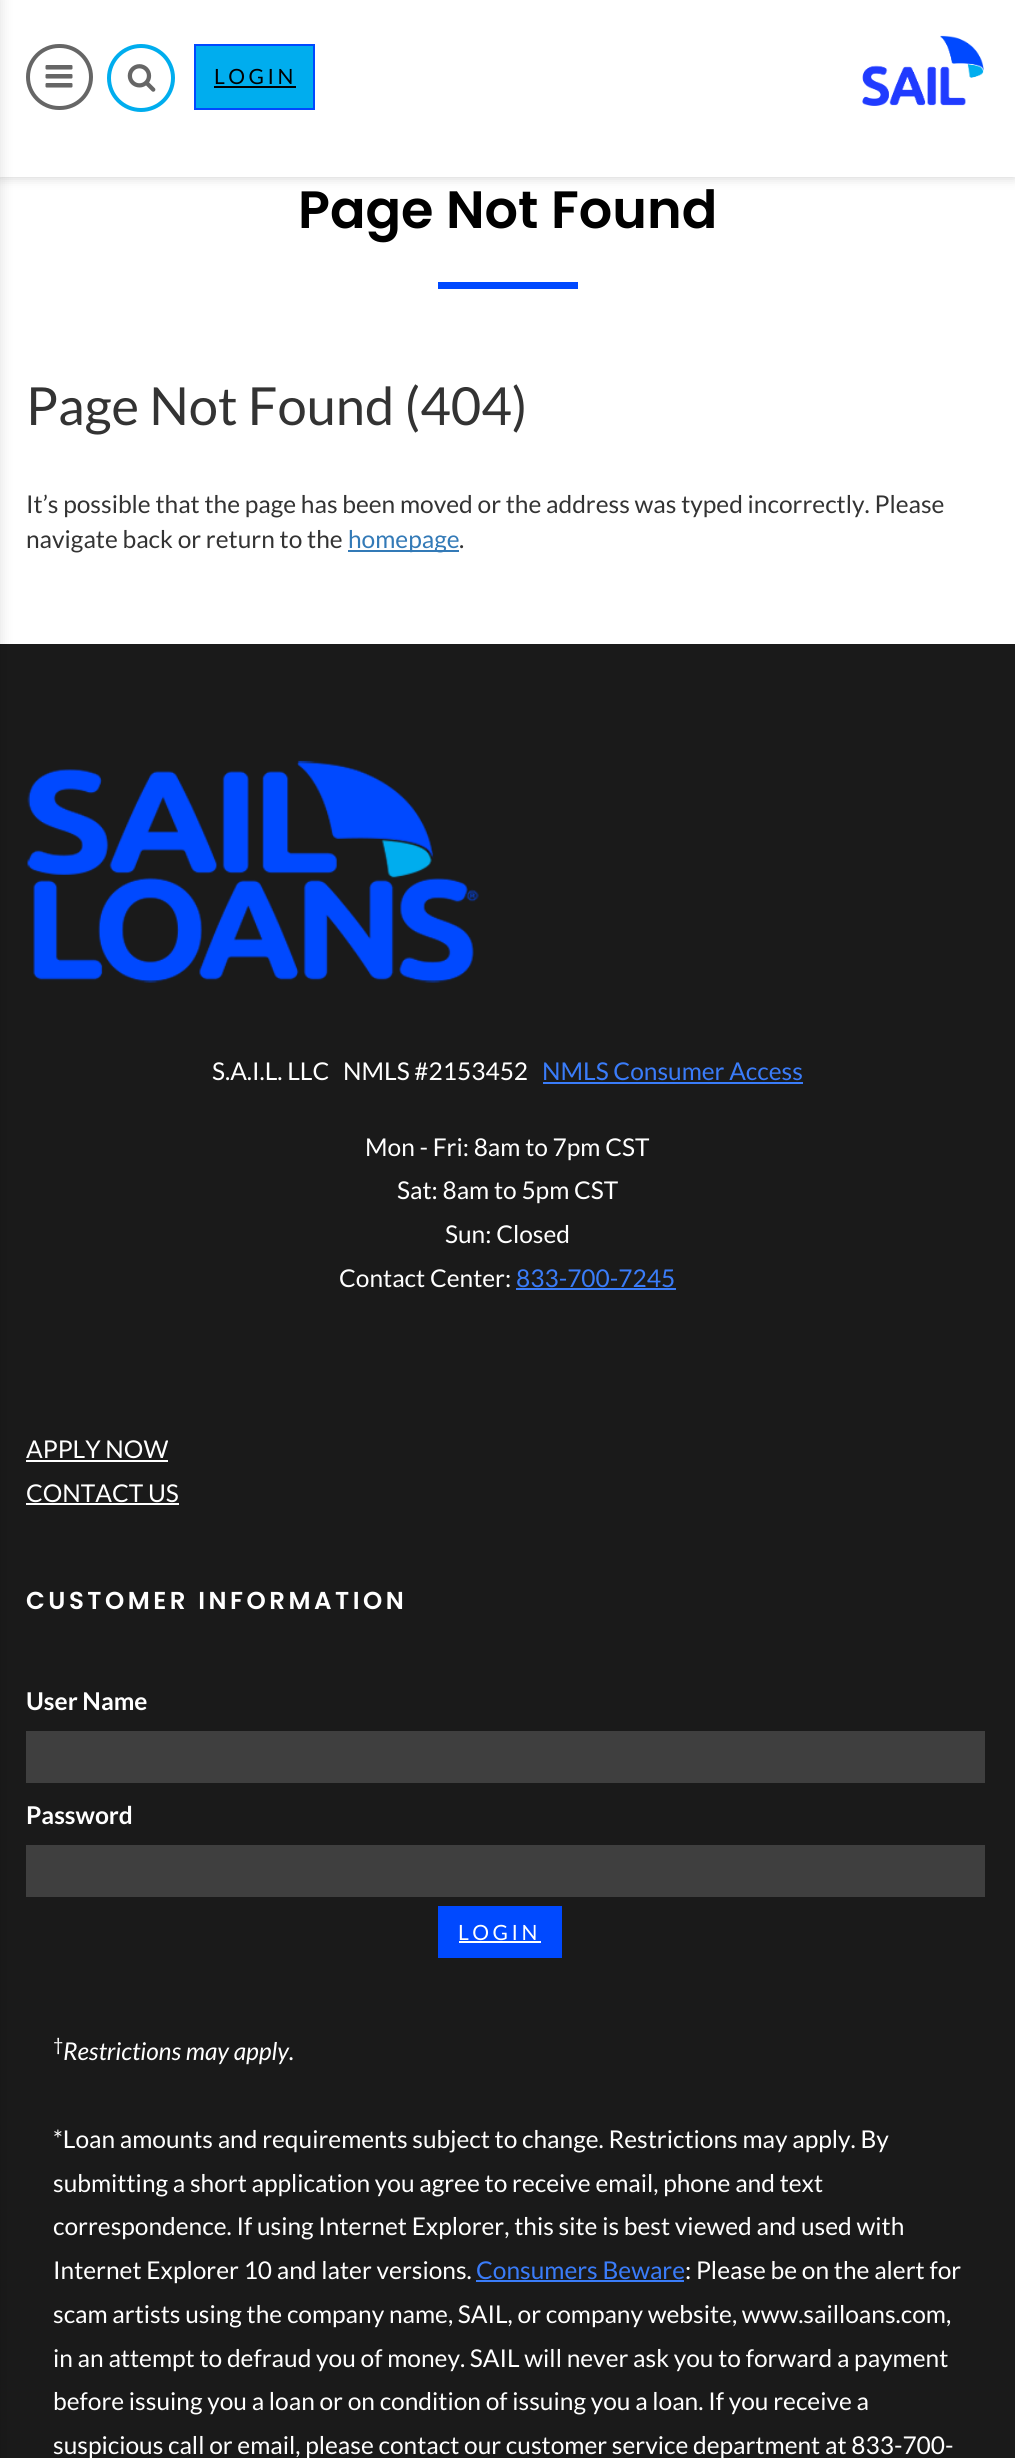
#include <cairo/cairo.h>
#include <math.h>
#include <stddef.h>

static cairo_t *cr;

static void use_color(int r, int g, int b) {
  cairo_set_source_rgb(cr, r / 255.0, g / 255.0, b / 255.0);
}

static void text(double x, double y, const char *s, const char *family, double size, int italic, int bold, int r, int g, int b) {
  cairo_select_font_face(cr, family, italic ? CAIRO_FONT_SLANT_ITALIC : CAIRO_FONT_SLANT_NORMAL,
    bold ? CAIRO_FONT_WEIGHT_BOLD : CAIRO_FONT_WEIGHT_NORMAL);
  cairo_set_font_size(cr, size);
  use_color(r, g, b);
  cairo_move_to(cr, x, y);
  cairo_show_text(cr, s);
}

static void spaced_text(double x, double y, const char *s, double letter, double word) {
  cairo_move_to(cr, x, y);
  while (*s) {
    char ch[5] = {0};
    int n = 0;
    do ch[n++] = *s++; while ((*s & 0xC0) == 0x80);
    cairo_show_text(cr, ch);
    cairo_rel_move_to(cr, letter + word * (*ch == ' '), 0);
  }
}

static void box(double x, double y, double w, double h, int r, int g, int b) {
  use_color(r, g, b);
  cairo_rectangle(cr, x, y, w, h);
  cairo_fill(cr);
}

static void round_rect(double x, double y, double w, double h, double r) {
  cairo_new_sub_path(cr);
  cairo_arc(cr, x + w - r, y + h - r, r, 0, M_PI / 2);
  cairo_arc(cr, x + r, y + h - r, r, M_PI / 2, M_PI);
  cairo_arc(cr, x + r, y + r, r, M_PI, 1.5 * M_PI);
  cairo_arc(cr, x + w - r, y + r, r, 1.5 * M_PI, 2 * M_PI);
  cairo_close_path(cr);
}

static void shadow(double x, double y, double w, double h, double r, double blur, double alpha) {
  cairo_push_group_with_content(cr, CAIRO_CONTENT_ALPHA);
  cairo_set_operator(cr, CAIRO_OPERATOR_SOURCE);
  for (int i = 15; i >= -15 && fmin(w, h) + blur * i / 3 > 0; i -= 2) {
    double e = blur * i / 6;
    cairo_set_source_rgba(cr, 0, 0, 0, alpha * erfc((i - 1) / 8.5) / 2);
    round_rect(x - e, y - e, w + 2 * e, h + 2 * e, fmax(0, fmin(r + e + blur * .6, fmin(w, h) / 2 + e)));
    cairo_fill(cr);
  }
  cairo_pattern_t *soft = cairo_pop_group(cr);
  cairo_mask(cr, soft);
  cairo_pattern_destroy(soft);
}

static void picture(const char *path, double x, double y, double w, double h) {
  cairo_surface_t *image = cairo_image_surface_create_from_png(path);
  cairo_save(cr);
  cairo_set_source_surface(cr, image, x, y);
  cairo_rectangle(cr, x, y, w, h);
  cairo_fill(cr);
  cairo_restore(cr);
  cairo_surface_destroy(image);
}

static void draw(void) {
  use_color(255, 255, 255);
  cairo_paint(cr);
  use_color(0, 0, 0);
  shadow(0, 0, 1015, 177, 0, 6, 0.2);
  box(0, 0, 1015, 177, 255, 255, 255);
  box(0, 644, 1015, 1814, 26, 26, 26);
  use_color(0, 0, 0);
  shadow(-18, -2, 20, 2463, 0, 6, 0.1);
  round_rect(28, 46, 63, 62, 31);
  use_color(102, 102, 102);
  cairo_set_line_width(cr, 4);
  cairo_stroke(cr);
  picture("img_01.png", 45, 65, 28, 23);
  cairo_arc(cr, 141, 78, 32, 0, 2 * M_PI);
  use_color(0, 173, 238);
  cairo_stroke(cr);
  picture("img_02.png", 127, 64, 29, 28);
  cairo_rectangle(cr, 195, 45, 119, 64);
  cairo_fill_preserve(cr);
  use_color(0, 73, 255);
  cairo_set_line_width(cr, 2);
  cairo_stroke(cr);
  box(214, 86, 82, 2, 0, 0, 0);
  picture("img_03.png", 862, 35, 122, 71);
  box(438, 282, 140, 7, 0, 73, 255);
  box(348, 550, 111, 2, 51, 122, 183);
  picture("img_04.png", 27, 760, 452, 223);
  box(543, 1082, 260, 2, 58, 124, 249);
  box(516, 1288, 160, 2, 58, 124, 249);
  box(26, 1460, 142, 2, 255, 255, 255);
  box(26, 1503, 153, 2, 255, 255, 255);
  box(26, 1731, 959, 52, 63, 63, 63);
  box(26, 1845, 959, 52, 63, 63, 63);
  box(438, 1906, 124, 52, 0, 73, 255);
  box(459, 1941, 82, 2, 255, 255, 255);
  box(476, 2280, 208, 2, 58, 124, 249);
  cairo_select_font_face(cr, "Lato", CAIRO_FONT_SLANT_NORMAL, CAIRO_FONT_WEIGHT_NORMAL);
  cairo_set_font_size(cr, 21);
  use_color(0, 0, 0);
  spaced_text(214, 84, "LOGIN", 3.5, 0);
  text(298, 228, "Page Not Found", "Poppins SemiBold", 52.5, 0, 0, 0, 0, 0);
  text(26, 425, "Page Not Found (404)", "Lato", 52.5, 0, 0, 51, 51, 51);
  text(26, 513, "It’s possible that the page has been moved or the address was typed incorrectly. Please", "Lato", 24.5, 0, 0, 51, 51, 51);
  text(26, 548, "navigate back or return to the", "Lato", 24.5, 0, 0, 51, 51, 51);
  text(348, 548, "homepage", "Lato", 24.5, 0, 0, 51, 122, 183);
  text(459, 548, ".", "Lato", 24.5, 0, 0, 51, 51, 51);
  text(212, 1080, "S.A.I.L. LLC", "Lato", 24.5, 0, 0, 255, 255, 255);
  text(343, 1080, "NMLS #2153452", "Lato", 24.5, 0, 0, 255, 255, 255);
  text(542, 1080, "NMLS Consumer Access", "Lato", 24.5, 0, 0, 58, 124, 249);
  text(365, 1156, "Mon - Fri: 8am to 7pm CST", "Lato", 24.5, 0, 0, 255, 255, 255);
  text(397, 1199, "Sat: 8am to 5pm CST", "Lato", 24.5, 0, 0, 255, 255, 255);
  text(445, 1243, "Sun: Closed", "Lato", 24.5, 0, 0, 255, 255, 255);
  text(339, 1287, "Contact Center:", "Lato", 24.5, 0, 0, 255, 255, 255);
  text(516, 1287, "833-700-7245", "Lato", 24.5, 0, 0, 58, 124, 249);
  text(26, 1458, "APPLY NOW", "Lato", 24.5, 0, 0, 255, 255, 255);
  text(26, 1502, "CONTACT US", "Lato", 24.5, 0, 0, 255, 255, 255);
  cairo_select_font_face(cr, "Poppins SemiBold", CAIRO_FONT_SLANT_NORMAL, CAIRO_FONT_WEIGHT_NORMAL);
  spaced_text(26, 1609, "CUSTOMER INFORMATION", 3.5, 0);
  text(26, 1710, "User Name", "Lato", 24.5, 0, 1, 255, 255, 255);
  text(26, 1824, "Password", "Lato", 24.5, 0, 1, 255, 255, 255);
  cairo_select_font_face(cr, "Lato", CAIRO_FONT_SLANT_NORMAL, CAIRO_FONT_WEIGHT_NORMAL);
  cairo_set_font_size(cr, 21);
  spaced_text(458, 1940, "LOGIN", 3.5, 0);
  text(53, 2051, "†", "Lato", 18, 0, 0, 255, 255, 255);
  text(63, 2060, "Restrictions may apply.", "Lato", 24.5, 1, 0, 255, 255, 255);
  text(53, 2148, "*Loan amounts and requirements subject to change. Restrictions may apply. By", "Lato", 24.5, 0, 0, 255, 255, 255);
  text(53, 2192, "submitting a short application you agree to receive email, phone and text", "Lato", 24.5, 0, 0, 255, 255, 255);
  text(53, 2235, "correspondence. If using Internet Explorer, this site is best viewed and used with", "Lato", 24.5, 0, 0, 255, 255, 255);
  text(53, 2279, "Internet Explorer 10 and later versions.", "Lato", 24.5, 0, 0, 255, 255, 255);
  text(476, 2279, "Consumers Beware", "Lato", 24.5, 0, 0, 58, 124, 249);
  text(685, 2279, ": Please be on the alert for", "Lato", 24.5, 0, 0, 255, 255, 255);
  text(53, 2323, "scam artists using the company name, SAIL, or company website, www.sailloans.com,", "Lato", 24.5, 0, 0, 255, 255, 255);
  text(53, 2367, "in an attempt to defraud you of money. SAIL will never ask you to forward a payment", "Lato", 24.5, 0, 0, 255, 255, 255);
  text(53, 2410, "before issuing you a loan or on condition of issuing you a loan. If you receive a", "Lato", 24.5, 0, 0, 255, 255, 255);
  text(53, 2454, "suspicious call or email, please contact our customer service department at 833-700-", "Lato", 24.5, 0, 0, 255, 255, 255);
}

int main(void) {
  cairo_surface_t *surface = cairo_image_surface_create(CAIRO_FORMAT_RGB24, 1015, 2458);
  cr = cairo_create(surface);
  cairo_font_options_t *options = cairo_font_options_create();
  cairo_font_options_set_hint_metrics(options, CAIRO_HINT_METRICS_OFF);
  cairo_font_options_set_hint_style(options, CAIRO_HINT_STYLE_NONE);
  cairo_set_font_options(cr, options);
  cairo_set_miter_limit(cr, 4);
  draw();
  cairo_surface_write_to_png(surface, "out.png");
  cairo_font_options_destroy(options);
  cairo_destroy(cr);
  cairo_surface_destroy(surface);
  return 0;
}
